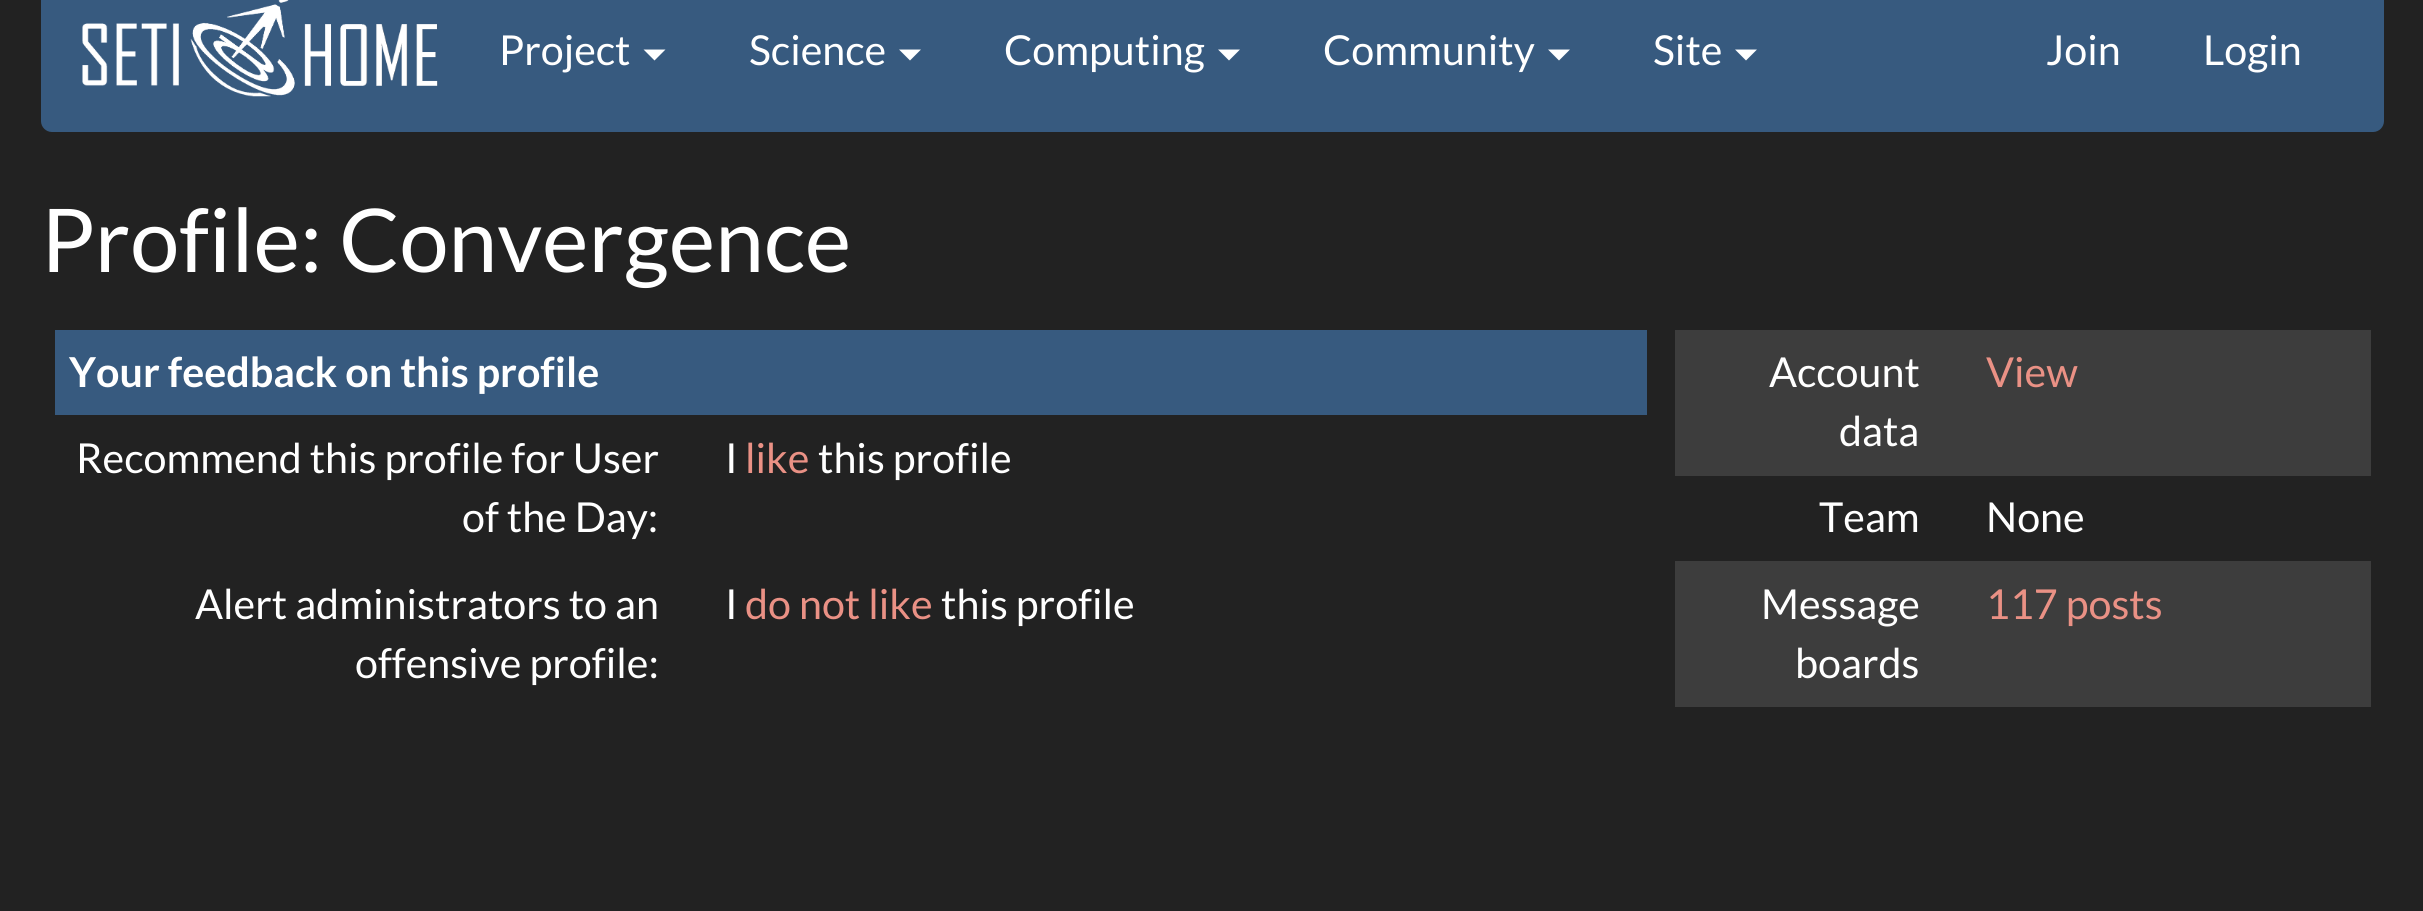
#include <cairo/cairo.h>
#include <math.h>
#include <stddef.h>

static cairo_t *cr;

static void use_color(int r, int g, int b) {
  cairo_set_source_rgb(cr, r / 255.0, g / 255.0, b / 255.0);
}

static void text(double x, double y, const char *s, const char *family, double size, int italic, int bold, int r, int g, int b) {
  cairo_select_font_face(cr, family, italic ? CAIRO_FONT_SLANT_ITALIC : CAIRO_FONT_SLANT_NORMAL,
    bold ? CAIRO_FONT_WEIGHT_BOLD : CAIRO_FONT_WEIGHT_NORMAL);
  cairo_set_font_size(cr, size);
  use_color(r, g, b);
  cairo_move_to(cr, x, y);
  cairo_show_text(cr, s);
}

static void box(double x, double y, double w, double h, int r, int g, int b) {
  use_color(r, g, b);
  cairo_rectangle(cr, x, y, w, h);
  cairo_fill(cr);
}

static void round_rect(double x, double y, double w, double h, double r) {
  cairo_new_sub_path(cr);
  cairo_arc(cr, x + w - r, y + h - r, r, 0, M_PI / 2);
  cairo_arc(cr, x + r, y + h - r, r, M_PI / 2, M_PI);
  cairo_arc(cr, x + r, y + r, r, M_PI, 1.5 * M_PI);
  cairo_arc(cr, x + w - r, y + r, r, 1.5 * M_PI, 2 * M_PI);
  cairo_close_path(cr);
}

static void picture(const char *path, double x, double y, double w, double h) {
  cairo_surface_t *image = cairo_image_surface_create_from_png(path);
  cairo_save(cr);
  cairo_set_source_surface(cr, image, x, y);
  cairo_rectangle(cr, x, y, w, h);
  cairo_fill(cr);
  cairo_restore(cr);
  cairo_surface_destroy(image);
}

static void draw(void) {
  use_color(34, 34, 34);
  cairo_paint(cr);
  use_color(55, 90, 127);
  round_rect(41, -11, 2343, 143, 11);
  cairo_fill(cr);
  picture("img_01.png", 82, 0, 356, 97);
  use_color(255, 255, 255);
  cairo_new_path(cr);
  cairo_move_to(cr, 643.5, 49.5);
  cairo_line_to(cr, 665.5, 49.5);
  cairo_line_to(cr, 654.5, 60.5);
  cairo_close_path(cr);
  cairo_fill(cr);
  cairo_new_path(cr);
  cairo_move_to(cr, 899, 49.5);
  cairo_line_to(cr, 921, 49.5);
  cairo_line_to(cr, 910, 60.5);
  cairo_close_path(cr);
  cairo_fill(cr);
  cairo_new_path(cr);
  cairo_move_to(cr, 1218, 49.5);
  cairo_line_to(cr, 1240, 49.5);
  cairo_line_to(cr, 1229, 60.5);
  cairo_close_path(cr);
  cairo_fill(cr);
  cairo_new_path(cr);
  cairo_move_to(cr, 1548, 49.5);
  cairo_line_to(cr, 1570, 49.5);
  cairo_line_to(cr, 1559, 60.5);
  cairo_close_path(cr);
  cairo_fill(cr);
  cairo_new_path(cr);
  cairo_move_to(cr, 1735, 49.5);
  cairo_line_to(cr, 1757, 49.5);
  cairo_line_to(cr, 1746, 60.5);
  cairo_close_path(cr);
  cairo_fill(cr);
  box(55, 330, 1592, 85, 55, 90, 127);
  box(1675, 330, 696, 146, 61, 61, 61);
  box(1675, 561, 696, 146, 61, 61, 61);
  text(499, 65, "Project", "Lato", 41.25, 0, 0, 255, 255, 255);
  text(749, 65, "Science", "Lato", 41.25, 0, 0, 255, 255, 255);
  text(1004, 65, "Computing", "Lato", 41.25, 0, 0, 255, 255, 255);
  text(1323, 65, "Community", "Lato", 41.25, 0, 0, 255, 255, 255);
  text(1653, 65, "Site", "Lato", 41.25, 0, 0, 255, 255, 255);
  text(2046, 65, "Join", "Lato", 41.25, 0, 0, 255, 255, 255);
  text(2203, 65, "Login", "Lato", 41.25, 0, 0, 255, 255, 255);
  text(41, 272, "Profile: Convergence", "Lato", 88, 0, 0, 255, 255, 255);
  text(69, 387, "Your feedback on this profile", "Lato", 41.25, 0, 1, 255, 255, 255);
  text(76, 473, "Recommend this profile for User", "Lato", 41.25, 0, 0, 255, 255, 255);
  text(462, 532, "of the Day:", "Lato", 41.25, 0, 0, 255, 255, 255);
  text(725, 473, "I", "Lato", 41.25, 0, 0, 255, 255, 255);
  text(745, 473, "like", "Lato", 41.25, 0, 0, 234, 145, 133);
  text(818, 473, "this profile", "Lato", 41.25, 0, 0, 255, 255, 255);
  text(195, 619, "Alert administrators to an", "Lato", 41.25, 0, 0, 255, 255, 255);
  text(355, 678, "offensive profile:", "Lato", 41.25, 0, 0, 255, 255, 255);
  text(725, 619, "I", "Lato", 41.25, 0, 0, 255, 255, 255);
  text(745, 619, "do not like", "Lato", 41.25, 0, 0, 234, 145, 133);
  text(941, 619, "this profile", "Lato", 41.25, 0, 0, 255, 255, 255);
  text(1769, 387, "Account", "Lato", 41.25, 0, 0, 255, 255, 255);
  text(1839, 446, "data", "Lato", 41.25, 0, 0, 255, 255, 255);
  text(1986, 387, "View", "Lato", 41.25, 0, 0, 234, 145, 133);
  text(1819, 532, "Team", "Lato", 41.25, 0, 0, 255, 255, 255);
  text(1986, 532, "None", "Lato", 41.25, 0, 0, 255, 255, 255);
  text(1761, 619, "Message", "Lato", 41.25, 0, 0, 255, 255, 255);
  text(1795, 678, "boards", "Lato", 41.25, 0, 0, 255, 255, 255);
  text(1986, 619, "117 posts", "Lato", 41.25, 0, 0, 234, 145, 133);
}

int main(void) {
  cairo_surface_t *surface = cairo_image_surface_create(CAIRO_FORMAT_RGB24, 2423, 911);
  cr = cairo_create(surface);
  cairo_font_options_t *options = cairo_font_options_create();
  cairo_font_options_set_hint_metrics(options, CAIRO_HINT_METRICS_OFF);
  cairo_font_options_set_hint_style(options, CAIRO_HINT_STYLE_NONE);
  cairo_set_font_options(cr, options);
  cairo_set_miter_limit(cr, 4);
  draw();
  cairo_surface_write_to_png(surface, "out.png");
  cairo_font_options_destroy(options);
  cairo_destroy(cr);
  cairo_surface_destroy(surface);
  return 0;
}
